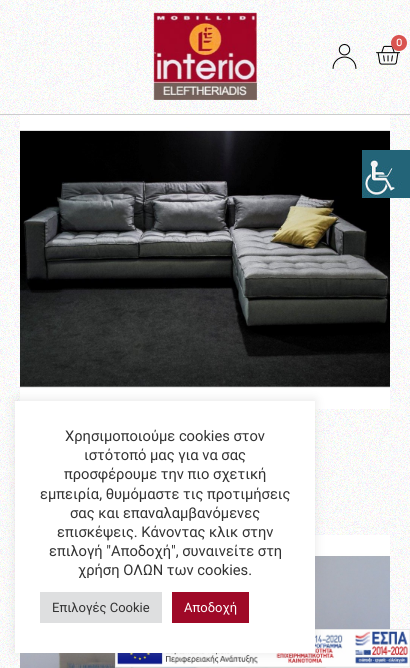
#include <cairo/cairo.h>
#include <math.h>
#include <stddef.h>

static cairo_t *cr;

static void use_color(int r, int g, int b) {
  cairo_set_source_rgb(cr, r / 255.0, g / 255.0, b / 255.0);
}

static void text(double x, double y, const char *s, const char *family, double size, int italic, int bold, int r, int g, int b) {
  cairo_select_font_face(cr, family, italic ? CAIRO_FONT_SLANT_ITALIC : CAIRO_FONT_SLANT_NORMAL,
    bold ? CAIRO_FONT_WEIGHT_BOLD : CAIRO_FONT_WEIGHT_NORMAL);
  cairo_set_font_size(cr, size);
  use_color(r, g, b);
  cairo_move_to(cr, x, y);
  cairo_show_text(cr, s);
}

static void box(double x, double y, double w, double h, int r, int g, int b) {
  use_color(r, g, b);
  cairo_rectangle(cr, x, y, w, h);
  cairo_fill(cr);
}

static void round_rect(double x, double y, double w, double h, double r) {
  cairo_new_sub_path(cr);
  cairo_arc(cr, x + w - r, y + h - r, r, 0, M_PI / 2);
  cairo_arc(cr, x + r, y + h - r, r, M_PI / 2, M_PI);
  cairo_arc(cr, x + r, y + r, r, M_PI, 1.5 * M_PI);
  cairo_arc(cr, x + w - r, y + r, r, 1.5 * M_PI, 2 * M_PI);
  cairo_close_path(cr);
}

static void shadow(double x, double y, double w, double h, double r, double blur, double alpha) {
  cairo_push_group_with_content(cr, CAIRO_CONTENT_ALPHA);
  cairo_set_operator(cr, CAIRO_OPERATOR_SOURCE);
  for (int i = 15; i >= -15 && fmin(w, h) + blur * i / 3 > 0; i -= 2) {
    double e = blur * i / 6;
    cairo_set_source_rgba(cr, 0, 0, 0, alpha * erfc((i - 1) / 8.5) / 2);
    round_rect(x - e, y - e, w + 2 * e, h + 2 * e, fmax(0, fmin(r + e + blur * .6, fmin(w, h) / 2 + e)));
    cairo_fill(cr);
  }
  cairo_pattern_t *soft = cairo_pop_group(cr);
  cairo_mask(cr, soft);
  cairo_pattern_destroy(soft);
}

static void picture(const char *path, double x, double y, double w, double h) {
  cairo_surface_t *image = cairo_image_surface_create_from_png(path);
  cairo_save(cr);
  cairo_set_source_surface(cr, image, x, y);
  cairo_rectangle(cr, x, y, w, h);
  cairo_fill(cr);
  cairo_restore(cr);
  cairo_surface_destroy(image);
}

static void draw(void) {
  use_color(255, 255, 255);
  cairo_paint(cr);
  picture("img_01.png", 0, 115, 410, 553);
  picture("img_02.png", 0, 0, 410, 114);
  box(0, 114, 410, 1, 204, 204, 204);
  picture("img_03.png", 153, 12, 104, 88);
  picture("img_04.png", 376, 45, 24, 20);
  use_color(217, 83, 79);
  cairo_arc(cr, 399, 43, 8, 0, 2 * M_PI);
  cairo_fill(cr);
  picture("img_05.png", 332, 44, 25, 25);
  picture("img_06.png", 20, 115, 370, 294);
  picture("img_07.png", 20, 535, 370, 133);
  picture("img_08.png", 362, 150, 48, 48);
  picture("img_09.png", 115, 629, 295, 39);
  use_color(172, 171, 171);
  shadow(15, 400, 300, 252, 0, 5, 0.3);
  box(15, 401, 300, 252, 255, 255, 255);
  box(40, 592, 122, 31, 222, 223, 224);
  box(172, 592, 77, 31, 159, 9, 39);
  text(396, 46, "0", "Manrope SemiBold", 10, 0, 0, 255, 255, 255);
  text(65, 441, "Χρησιμοποιούμε cookies στον", "Roboto", 14.7, 0, 0, 51, 51, 51);
  text(84, 460, "ιστότοπό μας για να σας", "Roboto", 14.7, 0, 0, 51, 51, 51);
  text(64, 479, "προσφέρουμε την πιο σχετική", "Roboto", 14.7, 0, 0, 51, 51, 51);
  text(40, 499, "εμπειρία, θυμόμαστε τις προτιμήσεις", "Roboto", 14.7, 0, 0, 51, 51, 51);
  text(70, 518, "σας και επαναλαμβανόμενες", "Roboto", 14.7, 0, 0, 51, 51, 51);
  text(57, 537, "επισκέψεις. Κάνοντας κλικ στην", "Roboto", 14.7, 0, 0, 51, 51, 51);
  text(49, 556, "επιλογή \"Αποδοχή\", συναινείτε στη", "Roboto", 14.7, 0, 0, 51, 51, 51);
  text(78, 575, "χρήση ΟΛΩΝ των cookies.", "Roboto", 14.7, 0, 0, 51, 51, 51);
  text(52, 612, "Επιλογές Cookie", "Roboto", 13, 0, 0, 51, 51, 51);
  text(184, 612, "Αποδοχή", "Roboto", 13, 0, 0, 255, 255, 255);
}

int main(void) {
  cairo_surface_t *surface = cairo_image_surface_create(CAIRO_FORMAT_RGB24, 410, 668);
  cr = cairo_create(surface);
  cairo_font_options_t *options = cairo_font_options_create();
  cairo_font_options_set_hint_metrics(options, CAIRO_HINT_METRICS_OFF);
  cairo_font_options_set_hint_style(options, CAIRO_HINT_STYLE_NONE);
  cairo_set_font_options(cr, options);
  cairo_set_miter_limit(cr, 4);
  draw();
  cairo_surface_write_to_png(surface, "out.png");
  cairo_font_options_destroy(options);
  cairo_destroy(cr);
  cairo_surface_destroy(surface);
  return 0;
}
